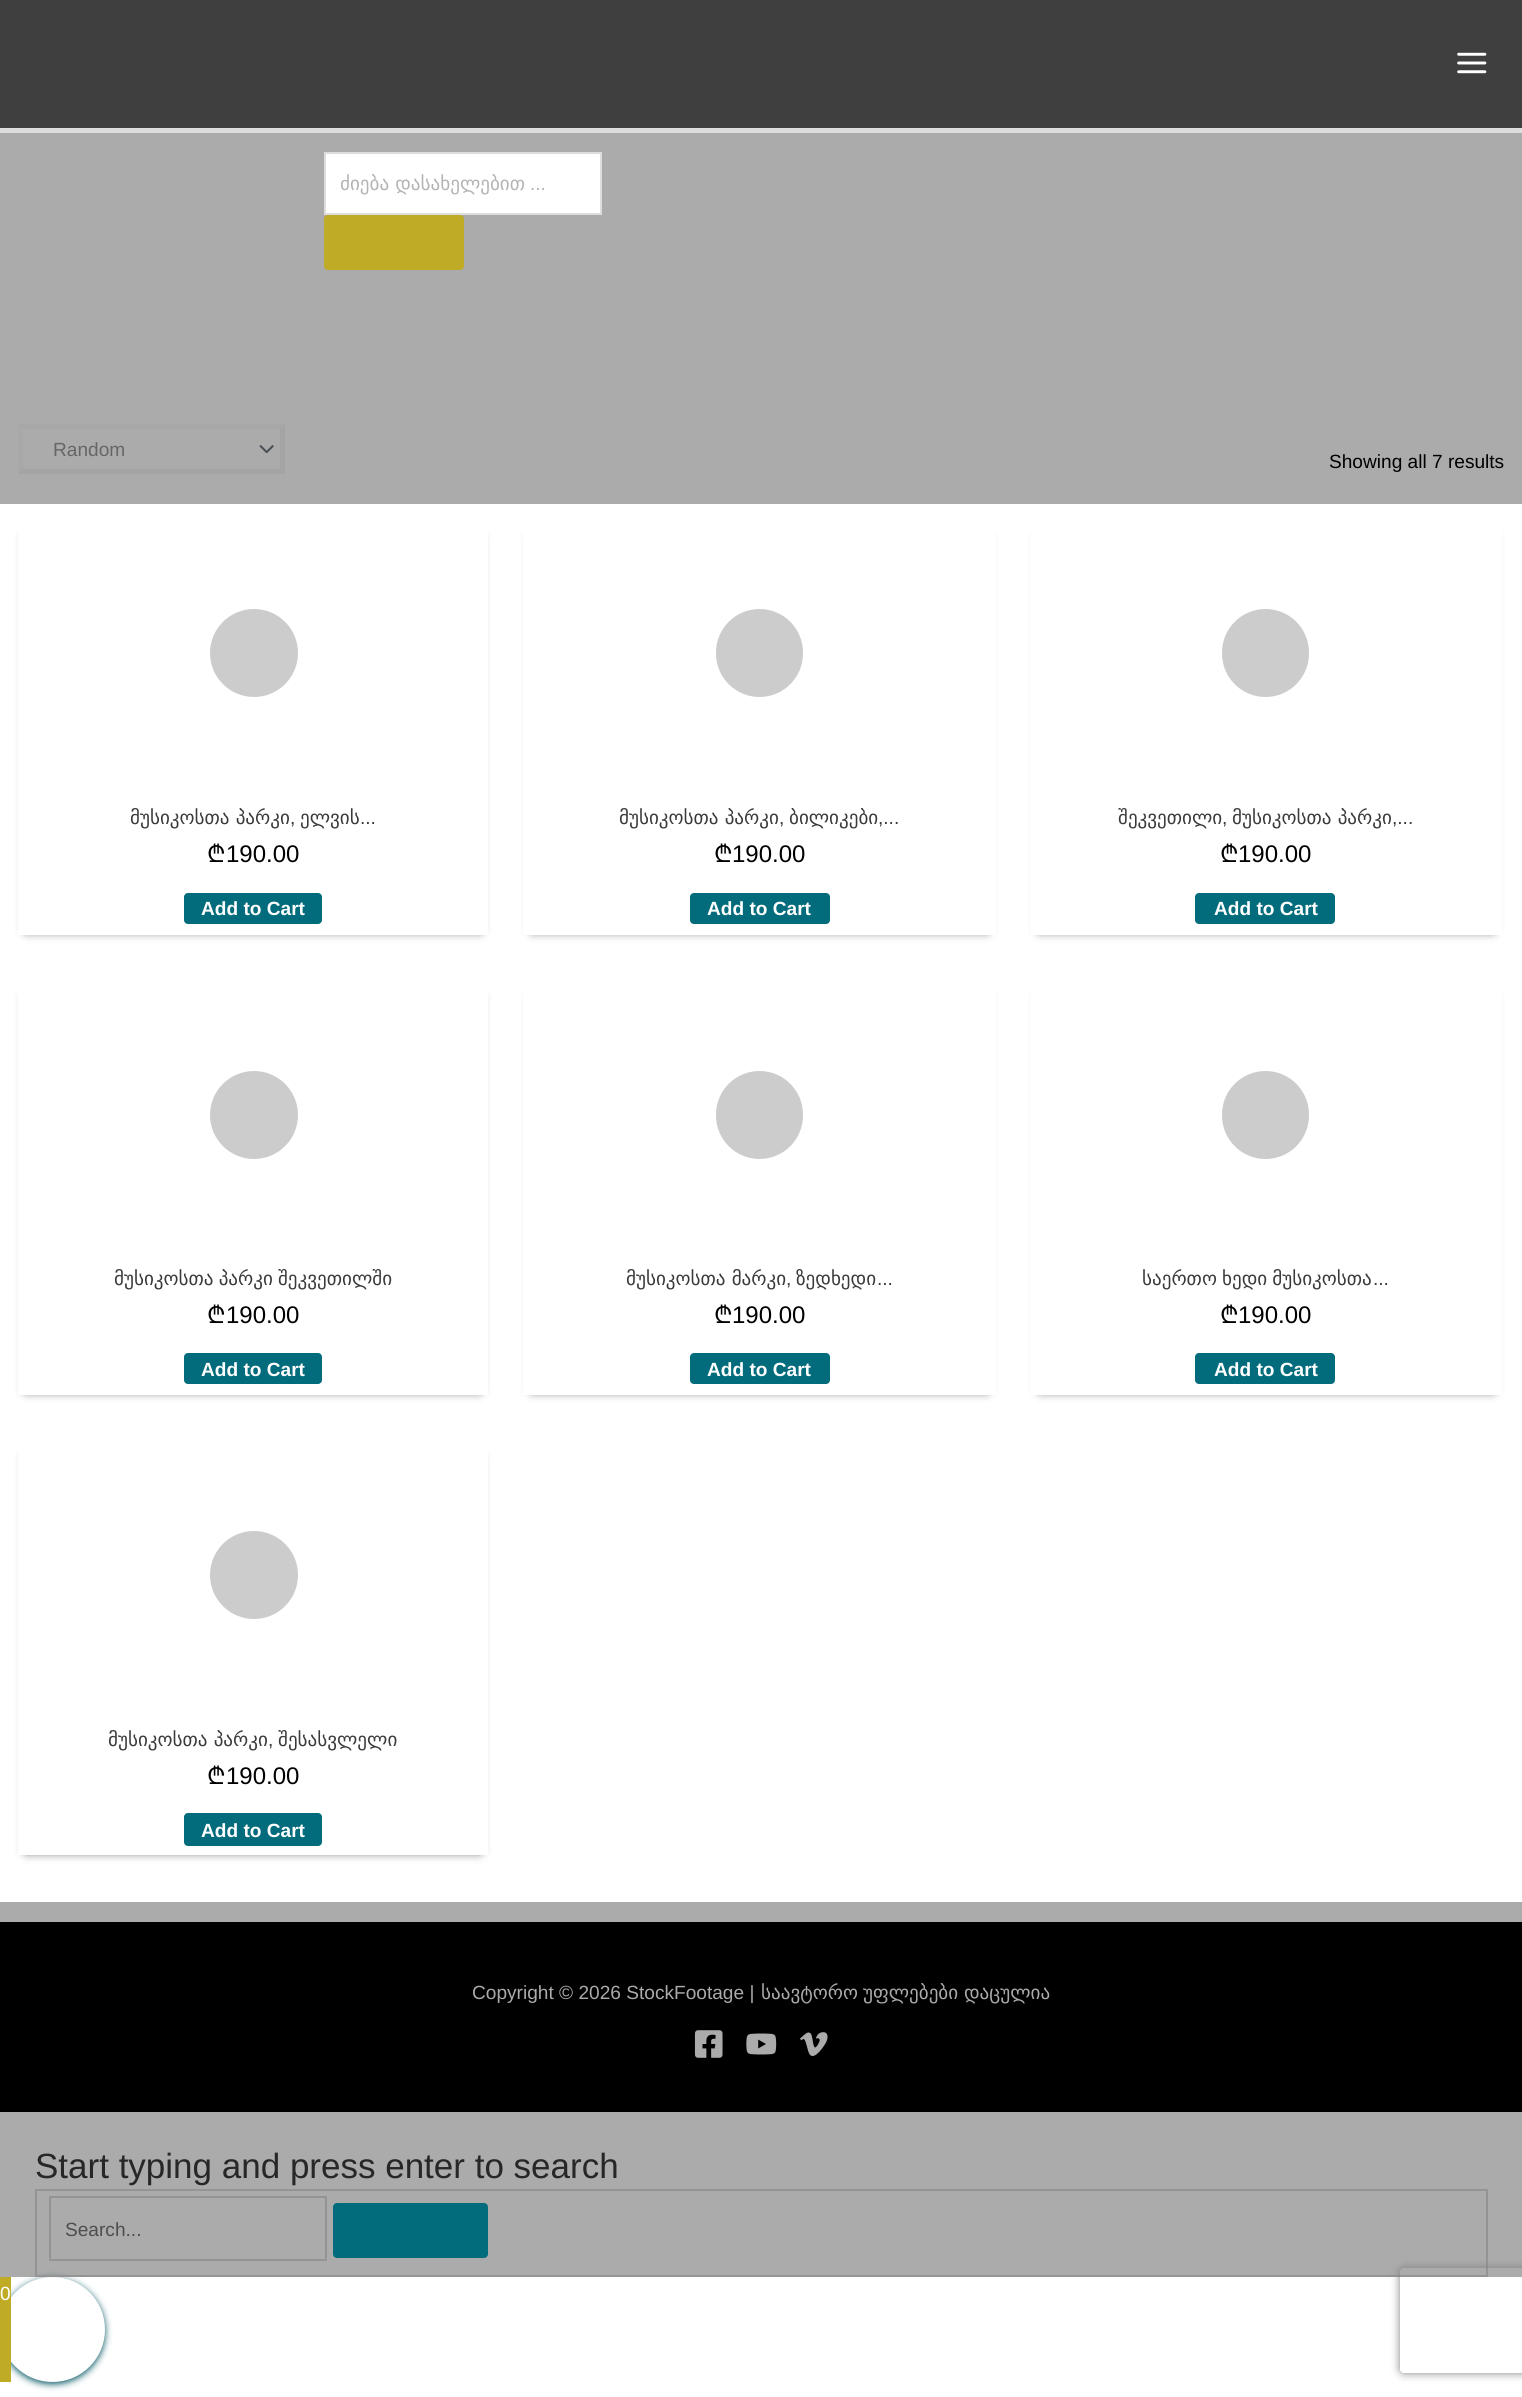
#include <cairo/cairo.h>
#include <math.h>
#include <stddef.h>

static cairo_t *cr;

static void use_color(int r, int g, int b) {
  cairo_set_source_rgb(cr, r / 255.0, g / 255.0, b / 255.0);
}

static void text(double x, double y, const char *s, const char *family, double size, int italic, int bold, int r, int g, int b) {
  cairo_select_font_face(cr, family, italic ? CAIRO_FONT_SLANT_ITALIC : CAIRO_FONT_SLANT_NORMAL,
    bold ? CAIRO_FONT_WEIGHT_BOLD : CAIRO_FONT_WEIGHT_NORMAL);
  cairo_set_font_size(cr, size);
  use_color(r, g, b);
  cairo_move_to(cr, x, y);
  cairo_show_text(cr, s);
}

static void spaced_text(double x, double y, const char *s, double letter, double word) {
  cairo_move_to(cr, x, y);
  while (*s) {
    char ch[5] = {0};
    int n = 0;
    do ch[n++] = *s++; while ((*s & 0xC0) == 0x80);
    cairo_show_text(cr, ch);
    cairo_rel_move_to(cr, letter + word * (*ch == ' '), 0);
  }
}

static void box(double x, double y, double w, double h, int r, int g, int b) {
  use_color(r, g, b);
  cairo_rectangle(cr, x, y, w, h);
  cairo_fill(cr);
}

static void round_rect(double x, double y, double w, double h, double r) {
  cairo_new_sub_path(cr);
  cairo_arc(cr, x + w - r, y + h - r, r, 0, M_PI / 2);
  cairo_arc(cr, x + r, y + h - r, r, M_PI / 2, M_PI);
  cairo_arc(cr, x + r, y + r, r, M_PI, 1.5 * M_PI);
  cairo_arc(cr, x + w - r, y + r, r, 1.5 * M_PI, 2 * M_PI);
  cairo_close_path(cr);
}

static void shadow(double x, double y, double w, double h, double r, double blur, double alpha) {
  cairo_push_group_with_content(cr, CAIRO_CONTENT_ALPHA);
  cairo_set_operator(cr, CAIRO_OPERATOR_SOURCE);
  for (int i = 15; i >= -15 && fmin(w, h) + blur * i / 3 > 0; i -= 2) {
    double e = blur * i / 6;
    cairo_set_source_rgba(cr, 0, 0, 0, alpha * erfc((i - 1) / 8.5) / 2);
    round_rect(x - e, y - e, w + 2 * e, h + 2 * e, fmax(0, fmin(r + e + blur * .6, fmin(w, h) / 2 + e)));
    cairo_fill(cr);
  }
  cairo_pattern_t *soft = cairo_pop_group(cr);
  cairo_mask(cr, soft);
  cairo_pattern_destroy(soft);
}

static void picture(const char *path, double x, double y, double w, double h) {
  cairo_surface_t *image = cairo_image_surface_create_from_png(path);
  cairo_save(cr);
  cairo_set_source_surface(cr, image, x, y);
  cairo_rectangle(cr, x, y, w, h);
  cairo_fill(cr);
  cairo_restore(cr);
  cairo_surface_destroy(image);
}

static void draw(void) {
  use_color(255, 255, 255);
  cairo_paint(cr);
  box(0, 0, 1522, 128, 63, 63, 63);
  box(0, 128, 1522, 5, 221, 221, 221);
  picture("img_01.png", 1457, 52, 30, 22);
  box(0, 1922, 1522, 190, 0, 0, 0);
  picture("img_03.png", 694, 2030, 29, 28);
  picture("img_04.png", 746, 2033, 31, 22);
  picture("img_05.png", 800, 2032, 28, 24);
  use_color(5, 88, 100);
  shadow(0, 2279, 105, 105, 52.5, 3.5, 1);
  cairo_rectangle(cr, 36, 2190, 1451, 86);
  use_color(221, 221, 221);
  cairo_stroke(cr);
  cairo_rectangle(cr, 50, 2197, 276, 63);
  cairo_stroke(cr);
  use_color(255, 255, 255);
  cairo_arc(cr, 52.5, 2329.5, 52.5, 0, 2 * M_PI);
  cairo_fill(cr);
  box(0, 2277, 11, 105, 191, 171, 37);
  text(472, 1999, "Copyright © 2026 StockFootage |", "Liberation Sans", 19.1, 0, 0, 255, 255, 255);
  text(761, 1999, "საავტორო", "DejaVu Sans", 19.1, 0, 0, 255, 255, 255);
  text(863, 1999, "უფლებები", "DejaVu Sans", 19.1, 0, 0, 255, 255, 255);
  text(964, 1999, "დაცულია", "DejaVu Sans", 19.1, 0, 0, 255, 255, 255);
  text(35, 2178, "Start typing and press enter to search", "Liberation Sans", 35, 0, 0, 58, 58, 58);
  text(65, 2236, "Search...", "Liberation Sans", 19.1, 0, 0, 117, 117, 117);
  cairo_set_source_rgba(cr, 0, 0, 0, 0.33);
  cairo_rectangle(cr, 0, 133, 1522, 2144);
  cairo_fill(cr);
  use_color(191, 171, 37);
  round_rect(324, 215, 140, 55, 4);
  cairo_fill(cr);
  use_color(255, 255, 255);
  cairo_rectangle(cr, 325, 153, 276, 61);
  cairo_fill_preserve(cr);
  use_color(221, 221, 221);
  cairo_stroke(cr);
  text(530, 190, "...", "Liberation Sans", 19.1, 0, 0, 179, 179, 179);
  text(340, 190, "ძიება დასახელებით", "DejaVu Sans", 19.1, 0, 0, 179, 179, 179);
  box(0, 504, 1522, 1398, 255, 255, 255);
  cairo_save(cr);
  cairo_set_fill_rule(cr, CAIRO_FILL_RULE_EVEN_ODD);
  cairo_new_path(cr);
  cairo_move_to(cr, 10, 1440);
  cairo_line_to(cr, 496, 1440);
  cairo_line_to(cr, 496, 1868);
  cairo_line_to(cr, 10, 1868);
  cairo_close_path(cr);
  cairo_move_to(cr, 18, 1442);
  cairo_line_to(cr, 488, 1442);
  cairo_line_to(cr, 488, 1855);
  cairo_line_to(cr, 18, 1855);
  cairo_close_path(cr);
  cairo_clip(cr);
  use_color(58, 58, 58);
  shadow(26, 1456, 454, 396, 0, 5, 1);
  cairo_restore(cr);
  use_color(204, 204, 204);
  cairo_arc(cr, 254, 1575, 44, 0, 2 * M_PI);
  cairo_fill(cr);
  cairo_save(cr);
  cairo_set_fill_rule(cr, CAIRO_FILL_RULE_EVEN_ODD);
  cairo_new_path(cr);
  cairo_move_to(cr, 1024, 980);
  cairo_line_to(cr, 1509, 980);
  cairo_line_to(cr, 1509, 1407);
  cairo_line_to(cr, 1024, 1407);
  cairo_close_path(cr);
  cairo_move_to(cr, 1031, 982);
  cairo_line_to(cr, 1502, 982);
  cairo_line_to(cr, 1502, 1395);
  cairo_line_to(cr, 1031, 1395);
  cairo_close_path(cr);
  cairo_clip(cr);
  use_color(58, 58, 58);
  shadow(1040, 996, 453, 395, 0, 5, 1);
  cairo_restore(cr);
  round_rect(1222, 1071, 87, 88, 43.5);
  cairo_fill(cr);
  cairo_save(cr);
  cairo_set_fill_rule(cr, CAIRO_FILL_RULE_EVEN_ODD);
  cairo_new_path(cr);
  cairo_move_to(cr, 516, 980);
  cairo_line_to(cr, 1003, 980);
  cairo_line_to(cr, 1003, 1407);
  cairo_line_to(cr, 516, 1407);
  cairo_close_path(cr);
  cairo_move_to(cr, 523, 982);
  cairo_line_to(cr, 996, 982);
  cairo_line_to(cr, 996, 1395);
  cairo_line_to(cr, 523, 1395);
  cairo_close_path(cr);
  cairo_clip(cr);
  use_color(58, 58, 58);
  shadow(532, 996, 455, 395, 0, 5, 1);
  cairo_restore(cr);
  round_rect(716, 1071, 87, 88, 43.5);
  cairo_fill(cr);
  cairo_save(cr);
  cairo_set_fill_rule(cr, CAIRO_FILL_RULE_EVEN_ODD);
  cairo_new_path(cr);
  cairo_move_to(cr, 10, 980);
  cairo_line_to(cr, 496, 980);
  cairo_line_to(cr, 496, 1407);
  cairo_line_to(cr, 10, 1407);
  cairo_close_path(cr);
  cairo_move_to(cr, 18, 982);
  cairo_line_to(cr, 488, 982);
  cairo_line_to(cr, 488, 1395);
  cairo_line_to(cr, 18, 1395);
  cairo_close_path(cr);
  cairo_clip(cr);
  use_color(58, 58, 58);
  shadow(26, 996, 454, 395, 0, 5, 1);
  cairo_restore(cr);
  cairo_arc(cr, 254, 1115, 44, 0, 2 * M_PI);
  cairo_fill(cr);
  cairo_save(cr);
  cairo_set_fill_rule(cr, CAIRO_FILL_RULE_EVEN_ODD);
  cairo_new_path(cr);
  cairo_move_to(cr, 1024, 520);
  cairo_line_to(cr, 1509, 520);
  cairo_line_to(cr, 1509, 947);
  cairo_line_to(cr, 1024, 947);
  cairo_close_path(cr);
  cairo_move_to(cr, 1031, 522);
  cairo_line_to(cr, 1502, 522);
  cairo_line_to(cr, 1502, 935);
  cairo_line_to(cr, 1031, 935);
  cairo_close_path(cr);
  cairo_clip(cr);
  use_color(58, 58, 58);
  shadow(1040, 536, 453, 395, 0, 5, 1);
  cairo_restore(cr);
  round_rect(1222, 609, 87, 88, 43.5);
  cairo_fill(cr);
  cairo_save(cr);
  cairo_set_fill_rule(cr, CAIRO_FILL_RULE_EVEN_ODD);
  cairo_new_path(cr);
  cairo_move_to(cr, 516, 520);
  cairo_line_to(cr, 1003, 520);
  cairo_line_to(cr, 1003, 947);
  cairo_line_to(cr, 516, 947);
  cairo_close_path(cr);
  cairo_move_to(cr, 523, 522);
  cairo_line_to(cr, 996, 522);
  cairo_line_to(cr, 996, 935);
  cairo_line_to(cr, 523, 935);
  cairo_close_path(cr);
  cairo_clip(cr);
  use_color(58, 58, 58);
  shadow(532, 536, 455, 395, 0, 5, 1);
  cairo_restore(cr);
  round_rect(716, 609, 87, 88, 43.5);
  cairo_fill(cr);
  cairo_save(cr);
  cairo_set_fill_rule(cr, CAIRO_FILL_RULE_EVEN_ODD);
  cairo_new_path(cr);
  cairo_move_to(cr, 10, 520);
  cairo_line_to(cr, 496, 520);
  cairo_line_to(cr, 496, 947);
  cairo_line_to(cr, 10, 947);
  cairo_close_path(cr);
  cairo_move_to(cr, 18, 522);
  cairo_line_to(cr, 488, 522);
  cairo_line_to(cr, 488, 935);
  cairo_line_to(cr, 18, 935);
  cairo_close_path(cr);
  cairo_clip(cr);
  use_color(58, 58, 58);
  shadow(26, 536, 454, 395, 0, 5, 1);
  cairo_restore(cr);
  cairo_arc(cr, 254, 653, 44, 0, 2 * M_PI);
  cairo_fill(cr);
  use_color(2, 108, 124);
  round_rect(184, 1813, 138, 33, 4);
  cairo_fill(cr);
  text(201, 1837, "Add to Cart", "Liberation Sans", 19.1, 0, 1, 255, 255, 255);
  text(226, 1784, "190.00", "Liberation Sans", 24, 0, 0, 0, 0, 0);
  text(207, 1784, "₾", "Noto Sans", 24, 0, 0, 0, 0, 0);
  text(278, 1746, "შესასვლელი", "DejaVu Sans", 19.1, 0, 0, 58, 58, 58);
  text(268, 1746, ",", "Liberation Sans", 19.1, 0, 0, 58, 58, 58);
  text(108, 1746, "მუსიკოსთა პარკი", "DejaVu Sans", 19.1, 0, 0, 58, 58, 58);
  use_color(2, 108, 124);
  round_rect(1195, 1353, 140, 31, 4);
  cairo_fill(cr);
  text(1214, 1376, "Add to Cart", "Liberation Sans", 19.1, 0, 1, 255, 255, 255);
  text(1238, 1323, "190.00", "Liberation Sans", 24, 0, 0, 0, 0, 0);
  text(1220, 1323, "₾", "Noto Sans", 24, 0, 0, 0, 0, 0);
  text(1373, 1285, "...", "Liberation Sans", 19.1, 0, 0, 58, 58, 58);
  cairo_select_font_face(cr, "DejaVu Sans", CAIRO_FONT_SLANT_NORMAL, CAIRO_FONT_WEIGHT_NORMAL);
  spaced_text(1142, 1285, "საერთო ხედი მუსიკოსთა", 0, -1);
  use_color(2, 108, 124);
  round_rect(690, 1353, 140, 31, 4);
  cairo_fill(cr);
  text(707, 1376, "Add to Cart", "Liberation Sans", 19.1, 0, 1, 255, 255, 255);
  text(732, 1323, "190.00", "Liberation Sans", 24, 0, 0, 0, 0, 0);
  text(714, 1323, "₾", "Noto Sans", 24, 0, 0, 0, 0, 0);
  text(877, 1285, "...", "Liberation Sans", 19.1, 0, 0, 58, 58, 58);
  text(796, 1285, "ზედხედი", "DejaVu Sans", 19.1, 0, 0, 58, 58, 58);
  text(786, 1285, ",", "Liberation Sans", 19.1, 0, 0, 58, 58, 58);
  text(626, 1285, "მუსიკოსთა მარკი", "DejaVu Sans", 19.1, 0, 0, 58, 58, 58);
  use_color(2, 108, 124);
  round_rect(184, 1353, 138, 31, 4);
  cairo_fill(cr);
  text(201, 1376, "Add to Cart", "Liberation Sans", 19.1, 0, 1, 255, 255, 255);
  text(226, 1323, "190.00", "Liberation Sans", 24, 0, 0, 0, 0, 0);
  text(207, 1323, "₾", "Noto Sans", 24, 0, 0, 0, 0, 0);
  cairo_select_font_face(cr, "DejaVu Sans", CAIRO_FONT_SLANT_NORMAL, CAIRO_FONT_WEIGHT_NORMAL);
  cairo_set_font_size(cr, 19.1);
  use_color(58, 58, 58);
  spaced_text(114, 1285, "მუსიკოსთა პარკი შეკვეთილში", 0, -1);
  use_color(2, 108, 124);
  round_rect(1195, 893, 140, 31, 4);
  cairo_fill(cr);
  text(1214, 915, "Add to Cart", "Liberation Sans", 19.1, 0, 1, 255, 255, 255);
  text(1238, 862, "190.00", "Liberation Sans", 24, 0, 0, 0, 0, 0);
  text(1220, 862, "₾", "Noto Sans", 24, 0, 0, 0, 0, 0);
  text(1392, 824, ",...", "Liberation Sans", 19.1, 0, 0, 58, 58, 58);
  text(1232, 824, "მუსიკოსთა პარკი", "DejaVu Sans", 19.1, 0, 0, 58, 58, 58);
  text(1222, 824, ",", "Liberation Sans", 19.1, 0, 0, 58, 58, 58);
  text(1118, 824, "შეკვეთილი", "DejaVu Sans", 19.1, 0, 0, 58, 58, 58);
  use_color(2, 108, 124);
  round_rect(690, 893, 140, 31, 4);
  cairo_fill(cr);
  text(707, 915, "Add to Cart", "Liberation Sans", 19.1, 0, 1, 255, 255, 255);
  text(732, 862, "190.00", "Liberation Sans", 24, 0, 0, 0, 0, 0);
  text(714, 862, "₾", "Noto Sans", 24, 0, 0, 0, 0, 0);
  text(878, 824, ",...", "Liberation Sans", 19.1, 0, 0, 58, 58, 58);
  text(789, 824, "ბილიკები", "DejaVu Sans", 19.1, 0, 0, 58, 58, 58);
  text(779, 824, ",", "Liberation Sans", 19.1, 0, 0, 58, 58, 58);
  text(619, 824, "მუსიკოსთა პარკი", "DejaVu Sans", 19.1, 0, 0, 58, 58, 58);
  use_color(2, 108, 124);
  round_rect(184, 893, 138, 31, 4);
  cairo_fill(cr);
  text(201, 915, "Add to Cart", "Liberation Sans", 19.1, 0, 1, 255, 255, 255);
  text(226, 862, "190.00", "Liberation Sans", 24, 0, 0, 0, 0, 0);
  text(207, 862, "₾", "Noto Sans", 24, 0, 0, 0, 0, 0);
  text(360, 824, "...", "Liberation Sans", 19.1, 0, 0, 58, 58, 58);
  text(300, 824, "ელვის", "DejaVu Sans", 19.1, 0, 0, 58, 58, 58);
  text(290, 824, ",", "Liberation Sans", 19.1, 0, 0, 58, 58, 58);
  text(130, 824, "მუსიკოსთა პარკი", "DejaVu Sans", 19.1, 0, 0, 58, 58, 58);
  text(1329, 468, "Showing all 7 results", "Liberation Sans", 19.1, 0, 0, 0, 0, 0);
  text(53, 456, "Random", "Liberation Sans", 19.1, 0, 0, 102, 102, 102);
  use_color(167, 167, 167);
  cairo_new_path(cr);
  cairo_move_to(cr, 18, 424);
  cairo_line_to(cr, 285, 424);
  cairo_line_to(cr, 280, 429);
  cairo_line_to(cr, 23, 429);
  cairo_close_path(cr);
  cairo_fill(cr);
  use_color(164, 164, 164);
  cairo_new_path(cr);
  cairo_move_to(cr, 285, 424);
  cairo_line_to(cr, 285, 474);
  cairo_line_to(cr, 280, 469);
  cairo_line_to(cr, 280, 429);
  cairo_close_path(cr);
  cairo_fill(cr);
  cairo_set_source_rgba(cr, 0.333, 0.333, 0.333, 0.08);
  cairo_new_path(cr);
  cairo_move_to(cr, 285, 474);
  cairo_line_to(cr, 18, 474);
  cairo_line_to(cr, 23, 469);
  cairo_line_to(cr, 280, 469);
  cairo_close_path(cr);
  cairo_fill(cr);
  cairo_set_source_rgba(cr, 0.502, 0.502, 0.502, 0.08);
  cairo_new_path(cr);
  cairo_move_to(cr, 18, 474);
  cairo_line_to(cr, 18, 424);
  cairo_line_to(cr, 23, 429);
  cairo_line_to(cr, 23, 469);
  cairo_close_path(cr);
  cairo_fill(cr);
  picture("img_02.png", 259, 445, 15, 8);
  use_color(2, 108, 124);
  round_rect(333, 2203, 155, 55, 4);
  cairo_fill(cr);
  text(0, 2300, "0", "Liberation Sans", 19.1, 0, 0, 255, 255, 255);
  cairo_save(cr);
  cairo_set_fill_rule(cr, CAIRO_FILL_RULE_EVEN_ODD);
  cairo_new_path(cr);
  cairo_move_to(cr, 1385, 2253);
  cairo_line_to(cr, 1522, 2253);
  cairo_line_to(cr, 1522, 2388);
  cairo_line_to(cr, 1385, 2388);
  cairo_close_path(cr);
  cairo_move_to(cr, 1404, 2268);
  cairo_line_to(cr, 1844, 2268);
  cairo_curve_to(cr, 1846, 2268, 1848, 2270, 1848, 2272);
  cairo_line_to(cr, 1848, 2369);
  cairo_curve_to(cr, 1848, 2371, 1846, 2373, 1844, 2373);
  cairo_line_to(cr, 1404, 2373);
  cairo_curve_to(cr, 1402, 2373, 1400, 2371, 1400, 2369);
  cairo_line_to(cr, 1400, 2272);
  cairo_curve_to(cr, 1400, 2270, 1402, 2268, 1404, 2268);
  cairo_close_path(cr);
  cairo_clip(cr);
  use_color(128, 128, 128);
  shadow(1400, 2268, 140, 105, 4, 4.5, 1);
  cairo_restore(cr);
}

int main(void) {
  cairo_surface_t *surface = cairo_image_surface_create(CAIRO_FORMAT_RGB24, 1522, 2397);
  cr = cairo_create(surface);
  cairo_font_options_t *options = cairo_font_options_create();
  cairo_font_options_set_hint_metrics(options, CAIRO_HINT_METRICS_OFF);
  cairo_font_options_set_hint_style(options, CAIRO_HINT_STYLE_NONE);
  cairo_set_font_options(cr, options);
  cairo_set_miter_limit(cr, 4);
  draw();
  cairo_surface_write_to_png(surface, "out.png");
  cairo_font_options_destroy(options);
  cairo_destroy(cr);
  cairo_surface_destroy(surface);
  return 0;
}
